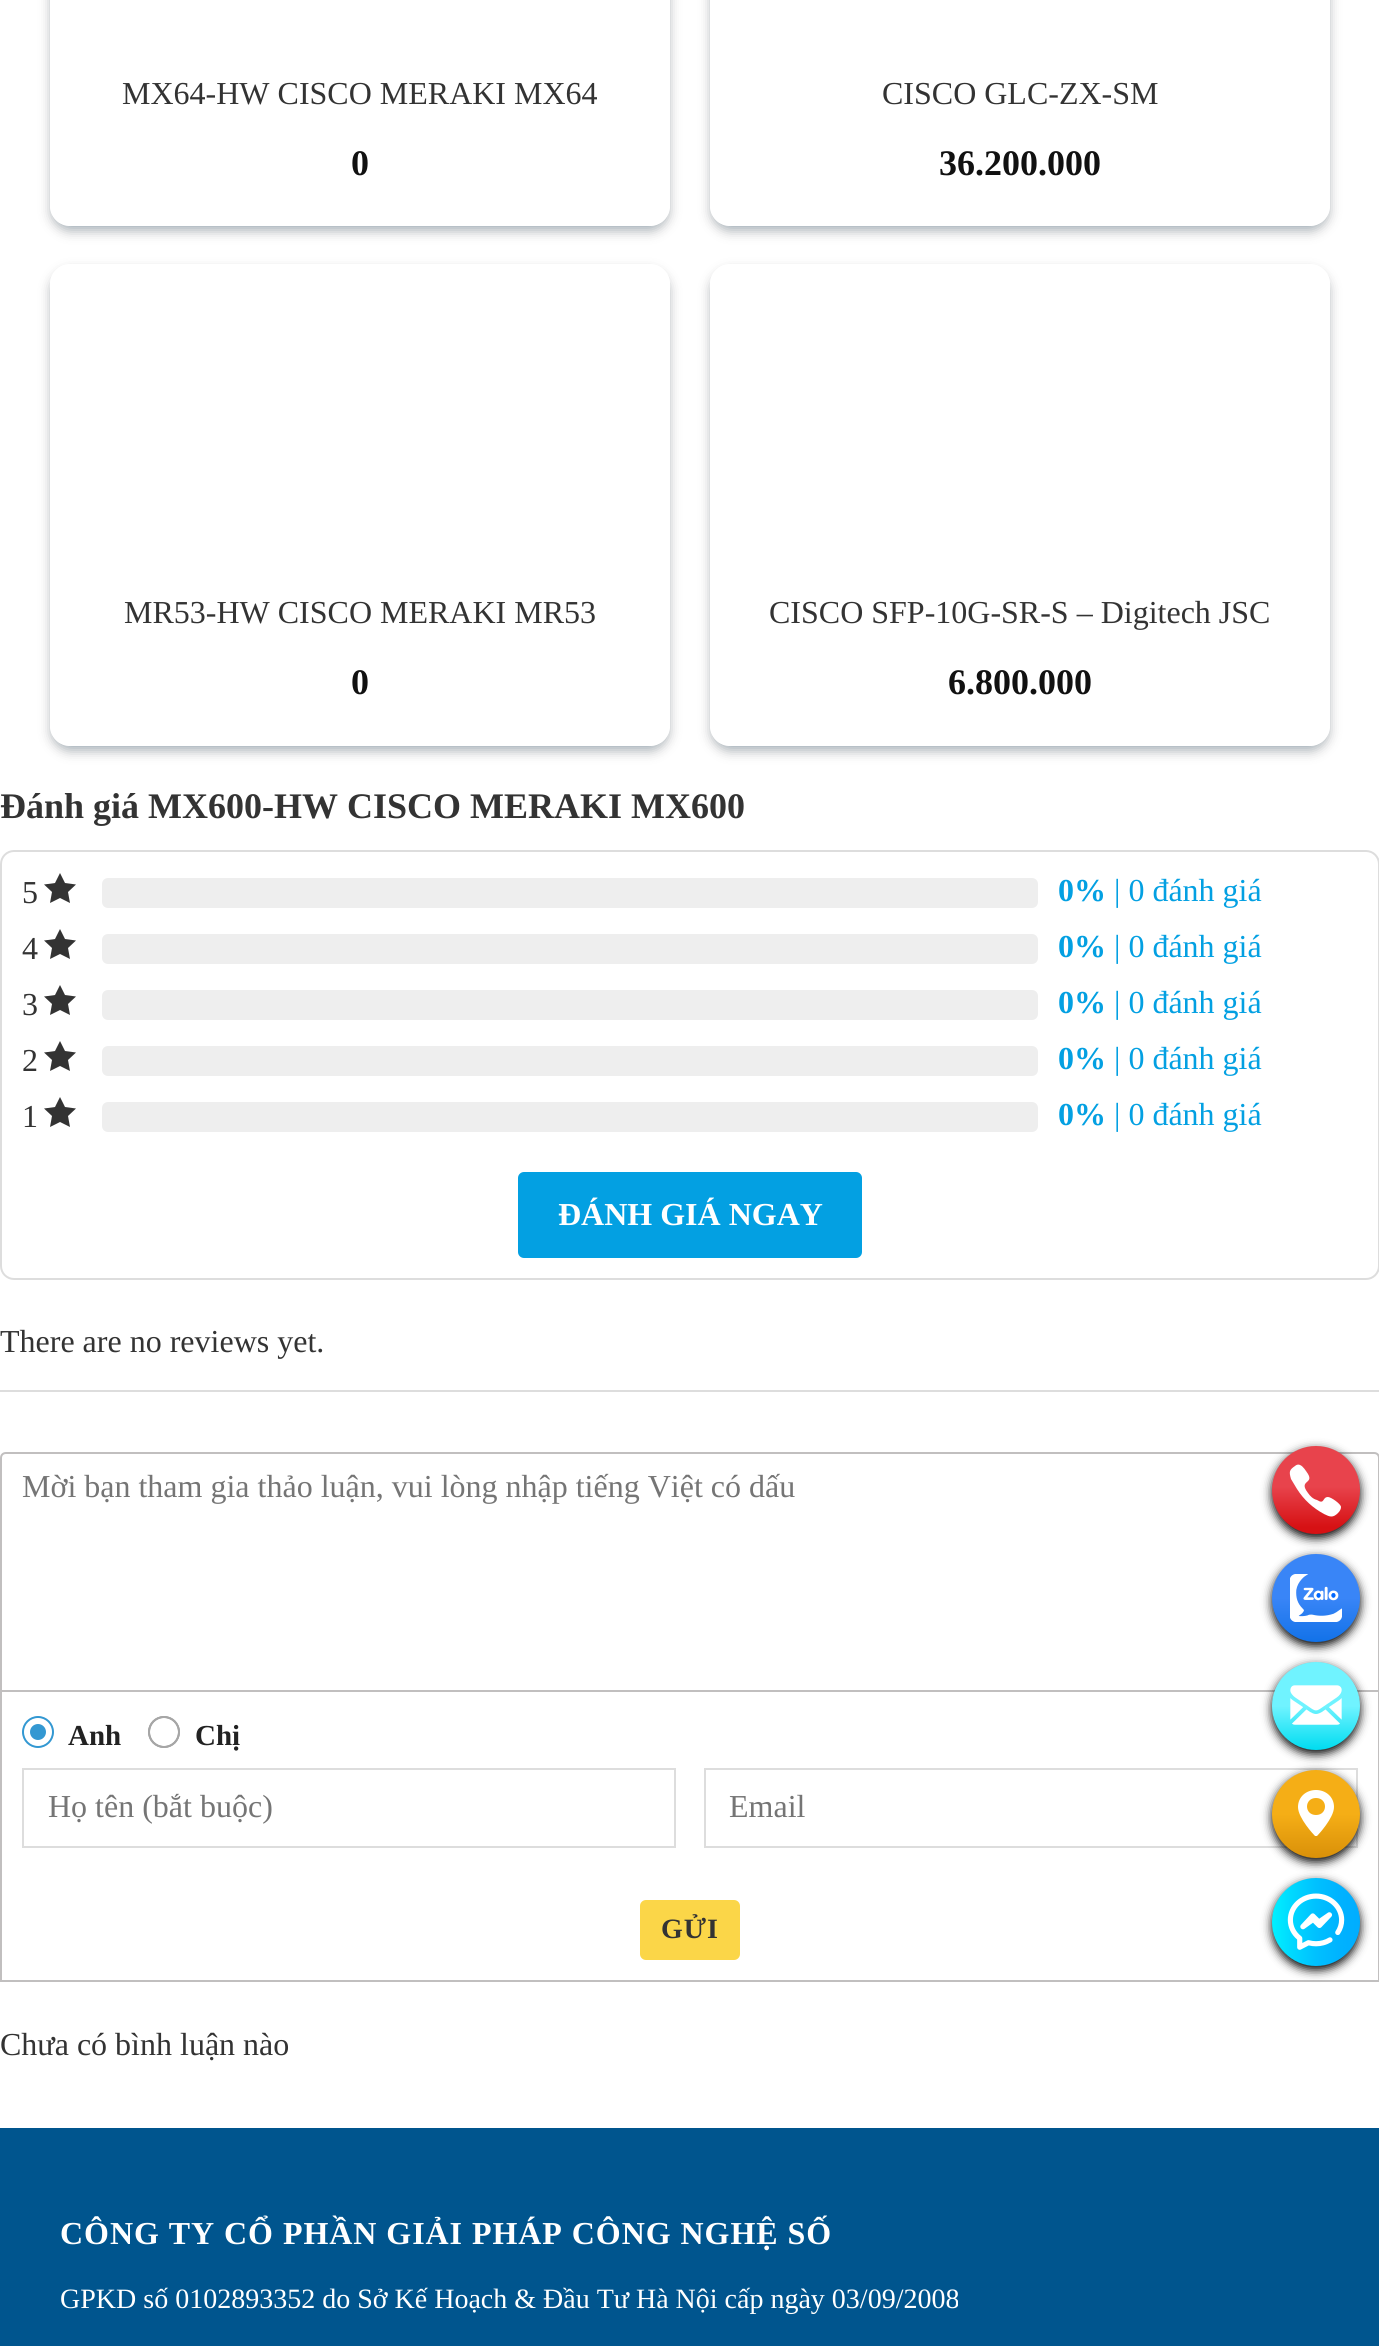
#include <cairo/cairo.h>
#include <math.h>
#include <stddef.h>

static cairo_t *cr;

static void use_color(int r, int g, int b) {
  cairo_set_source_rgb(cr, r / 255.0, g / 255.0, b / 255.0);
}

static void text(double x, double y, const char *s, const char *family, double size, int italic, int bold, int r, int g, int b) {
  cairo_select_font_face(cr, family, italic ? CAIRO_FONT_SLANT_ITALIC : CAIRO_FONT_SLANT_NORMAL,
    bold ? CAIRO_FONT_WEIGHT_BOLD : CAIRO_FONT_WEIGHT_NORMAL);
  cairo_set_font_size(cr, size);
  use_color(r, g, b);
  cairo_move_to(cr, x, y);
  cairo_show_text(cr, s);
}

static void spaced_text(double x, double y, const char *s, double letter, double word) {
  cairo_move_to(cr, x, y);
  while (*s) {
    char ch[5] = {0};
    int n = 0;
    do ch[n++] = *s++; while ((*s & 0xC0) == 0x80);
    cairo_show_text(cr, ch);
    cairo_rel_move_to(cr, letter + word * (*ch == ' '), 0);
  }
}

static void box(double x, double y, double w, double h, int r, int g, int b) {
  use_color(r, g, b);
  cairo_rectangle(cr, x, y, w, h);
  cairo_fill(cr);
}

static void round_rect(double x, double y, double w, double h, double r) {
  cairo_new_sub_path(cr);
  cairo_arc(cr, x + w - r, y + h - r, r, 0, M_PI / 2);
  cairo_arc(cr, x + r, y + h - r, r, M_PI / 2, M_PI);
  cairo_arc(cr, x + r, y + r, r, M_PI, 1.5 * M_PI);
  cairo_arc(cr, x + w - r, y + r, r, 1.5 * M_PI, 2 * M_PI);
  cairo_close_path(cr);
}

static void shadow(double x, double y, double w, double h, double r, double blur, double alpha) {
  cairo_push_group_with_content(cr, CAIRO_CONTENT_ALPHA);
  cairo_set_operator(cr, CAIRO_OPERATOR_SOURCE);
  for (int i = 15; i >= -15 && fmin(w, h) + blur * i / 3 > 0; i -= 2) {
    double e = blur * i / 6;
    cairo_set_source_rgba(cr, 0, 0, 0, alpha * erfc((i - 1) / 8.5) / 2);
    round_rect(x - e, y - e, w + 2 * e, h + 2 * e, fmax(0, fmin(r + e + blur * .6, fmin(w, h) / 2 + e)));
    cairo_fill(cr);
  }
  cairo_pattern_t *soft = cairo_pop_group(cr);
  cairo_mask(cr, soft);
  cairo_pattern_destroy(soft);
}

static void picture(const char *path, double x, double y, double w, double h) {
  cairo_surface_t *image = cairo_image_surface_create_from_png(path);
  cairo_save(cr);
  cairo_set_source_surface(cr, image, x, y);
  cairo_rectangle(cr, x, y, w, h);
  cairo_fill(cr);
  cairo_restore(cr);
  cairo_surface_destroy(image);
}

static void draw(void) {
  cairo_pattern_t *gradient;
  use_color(255, 255, 255);
  cairo_paint(cr);
  cairo_save(cr);
  cairo_set_fill_rule(cr, CAIRO_FILL_RULE_EVEN_ODD);
  cairo_new_path(cr);
  cairo_move_to(cr, 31, 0);
  cairo_line_to(cr, 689, 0);
  cairo_line_to(cr, 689, 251);
  cairo_line_to(cr, 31, 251);
  cairo_close_path(cr);
  cairo_move_to(cr, 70, -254);
  cairo_line_to(cr, 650, -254);
  cairo_curve_to(cr, 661, -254, 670, -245, 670, -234);
  cairo_line_to(cr, 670, 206);
  cairo_curve_to(cr, 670, 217, 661, 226, 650, 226);
  cairo_line_to(cr, 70, 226);
  cairo_curve_to(cr, 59, 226, 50, 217, 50, 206);
  cairo_line_to(cr, 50, -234);
  cairo_curve_to(cr, 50, -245, 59, -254, 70, -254);
  cairo_close_path(cr);
  cairo_clip(cr);
  use_color(0, 0, 0);
  shadow(50, -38, 620, 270, 20, 6, 0.23);
  cairo_restore(cr);
  cairo_save(cr);
  cairo_set_fill_rule(cr, CAIRO_FILL_RULE_EVEN_ODD);
  cairo_new_path(cr);
  cairo_move_to(cr, 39, 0);
  cairo_line_to(cr, 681, 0);
  cairo_line_to(cr, 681, 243);
  cairo_line_to(cr, 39, 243);
  cairo_close_path(cr);
  cairo_move_to(cr, 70, -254);
  cairo_line_to(cr, 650, -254);
  cairo_curve_to(cr, 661, -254, 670, -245, 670, -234);
  cairo_line_to(cr, 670, 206);
  cairo_curve_to(cr, 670, 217, 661, 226, 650, 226);
  cairo_line_to(cr, 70, 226);
  cairo_curve_to(cr, 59, 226, 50, 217, 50, 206);
  cairo_line_to(cr, 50, -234);
  cairo_curve_to(cr, 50, -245, 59, -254, 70, -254);
  cairo_close_path(cr);
  cairo_clip(cr);
  use_color(0, 85, 142);
  shadow(58, -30, 604, 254, 12, 6, 0.3);
  cairo_restore(cr);
  cairo_save(cr);
  cairo_set_fill_rule(cr, CAIRO_FILL_RULE_EVEN_ODD);
  cairo_new_path(cr);
  cairo_move_to(cr, 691, 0);
  cairo_line_to(cr, 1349, 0);
  cairo_line_to(cr, 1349, 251);
  cairo_line_to(cr, 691, 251);
  cairo_close_path(cr);
  cairo_move_to(cr, 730, -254);
  cairo_line_to(cr, 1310, -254);
  cairo_curve_to(cr, 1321, -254, 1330, -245, 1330, -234);
  cairo_line_to(cr, 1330, 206);
  cairo_curve_to(cr, 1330, 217, 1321, 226, 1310, 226);
  cairo_line_to(cr, 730, 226);
  cairo_curve_to(cr, 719, 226, 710, 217, 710, 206);
  cairo_line_to(cr, 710, -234);
  cairo_curve_to(cr, 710, -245, 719, -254, 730, -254);
  cairo_close_path(cr);
  cairo_clip(cr);
  use_color(0, 0, 0);
  shadow(710, -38, 620, 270, 20, 6, 0.23);
  cairo_restore(cr);
  cairo_save(cr);
  cairo_set_fill_rule(cr, CAIRO_FILL_RULE_EVEN_ODD);
  cairo_new_path(cr);
  cairo_move_to(cr, 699, 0);
  cairo_line_to(cr, 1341, 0);
  cairo_line_to(cr, 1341, 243);
  cairo_line_to(cr, 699, 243);
  cairo_close_path(cr);
  cairo_move_to(cr, 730, -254);
  cairo_line_to(cr, 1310, -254);
  cairo_curve_to(cr, 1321, -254, 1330, -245, 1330, -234);
  cairo_line_to(cr, 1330, 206);
  cairo_curve_to(cr, 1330, 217, 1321, 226, 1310, 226);
  cairo_line_to(cr, 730, 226);
  cairo_curve_to(cr, 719, 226, 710, 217, 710, 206);
  cairo_line_to(cr, 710, -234);
  cairo_curve_to(cr, 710, -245, 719, -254, 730, -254);
  cairo_close_path(cr);
  cairo_clip(cr);
  use_color(0, 85, 142);
  shadow(718, -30, 604, 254, 12, 6, 0.3);
  cairo_restore(cr);
  cairo_save(cr);
  cairo_set_fill_rule(cr, CAIRO_FILL_RULE_EVEN_ODD);
  cairo_new_path(cr);
  cairo_move_to(cr, 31, 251);
  cairo_line_to(cr, 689, 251);
  cairo_line_to(cr, 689, 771);
  cairo_line_to(cr, 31, 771);
  cairo_close_path(cr);
  cairo_move_to(cr, 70, 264);
  cairo_line_to(cr, 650, 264);
  cairo_curve_to(cr, 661, 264, 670, 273, 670, 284);
  cairo_line_to(cr, 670, 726);
  cairo_curve_to(cr, 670, 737, 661, 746, 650, 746);
  cairo_line_to(cr, 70, 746);
  cairo_curve_to(cr, 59, 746, 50, 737, 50, 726);
  cairo_line_to(cr, 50, 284);
  cairo_curve_to(cr, 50, 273, 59, 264, 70, 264);
  cairo_close_path(cr);
  cairo_clip(cr);
  use_color(0, 0, 0);
  shadow(50, 270, 620, 482, 20, 6, 0.23);
  cairo_restore(cr);
  cairo_save(cr);
  cairo_set_fill_rule(cr, CAIRO_FILL_RULE_EVEN_ODD);
  cairo_new_path(cr);
  cairo_move_to(cr, 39, 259);
  cairo_line_to(cr, 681, 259);
  cairo_line_to(cr, 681, 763);
  cairo_line_to(cr, 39, 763);
  cairo_close_path(cr);
  cairo_move_to(cr, 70, 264);
  cairo_line_to(cr, 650, 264);
  cairo_curve_to(cr, 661, 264, 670, 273, 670, 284);
  cairo_line_to(cr, 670, 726);
  cairo_curve_to(cr, 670, 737, 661, 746, 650, 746);
  cairo_line_to(cr, 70, 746);
  cairo_curve_to(cr, 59, 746, 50, 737, 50, 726);
  cairo_line_to(cr, 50, 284);
  cairo_curve_to(cr, 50, 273, 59, 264, 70, 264);
  cairo_close_path(cr);
  cairo_clip(cr);
  use_color(0, 85, 142);
  shadow(58, 278, 604, 466, 12, 6, 0.3);
  cairo_restore(cr);
  cairo_save(cr);
  cairo_set_fill_rule(cr, CAIRO_FILL_RULE_EVEN_ODD);
  cairo_new_path(cr);
  cairo_move_to(cr, 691, 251);
  cairo_line_to(cr, 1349, 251);
  cairo_line_to(cr, 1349, 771);
  cairo_line_to(cr, 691, 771);
  cairo_close_path(cr);
  cairo_move_to(cr, 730, 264);
  cairo_line_to(cr, 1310, 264);
  cairo_curve_to(cr, 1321, 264, 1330, 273, 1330, 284);
  cairo_line_to(cr, 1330, 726);
  cairo_curve_to(cr, 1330, 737, 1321, 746, 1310, 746);
  cairo_line_to(cr, 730, 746);
  cairo_curve_to(cr, 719, 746, 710, 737, 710, 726);
  cairo_line_to(cr, 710, 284);
  cairo_curve_to(cr, 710, 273, 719, 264, 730, 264);
  cairo_close_path(cr);
  cairo_clip(cr);
  use_color(0, 0, 0);
  shadow(710, 270, 620, 482, 20, 6, 0.23);
  cairo_restore(cr);
  cairo_save(cr);
  cairo_set_fill_rule(cr, CAIRO_FILL_RULE_EVEN_ODD);
  cairo_new_path(cr);
  cairo_move_to(cr, 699, 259);
  cairo_line_to(cr, 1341, 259);
  cairo_line_to(cr, 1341, 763);
  cairo_line_to(cr, 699, 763);
  cairo_close_path(cr);
  cairo_move_to(cr, 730, 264);
  cairo_line_to(cr, 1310, 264);
  cairo_curve_to(cr, 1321, 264, 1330, 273, 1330, 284);
  cairo_line_to(cr, 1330, 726);
  cairo_curve_to(cr, 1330, 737, 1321, 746, 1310, 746);
  cairo_line_to(cr, 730, 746);
  cairo_curve_to(cr, 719, 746, 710, 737, 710, 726);
  cairo_line_to(cr, 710, 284);
  cairo_curve_to(cr, 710, 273, 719, 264, 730, 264);
  cairo_close_path(cr);
  cairo_clip(cr);
  use_color(0, 85, 142);
  shadow(718, 278, 604, 466, 12, 6, 0.3);
  cairo_restore(cr);
  box(0, 1390, 1379, 2, 221, 221, 221);
  round_rect(1, 851, 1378, 428, 13);
  cairo_stroke(cr);
  use_color(51, 51, 51);
  cairo_new_path(cr);
  cairo_move_to(cr, 76, 884.5);
  cairo_line_to(cr, 65, 883);
  cairo_line_to(cr, 60, 873);
  cairo_line_to(cr, 55, 883);
  cairo_line_to(cr, 44, 884.5);
  cairo_line_to(cr, 52, 892);
  cairo_line_to(cr, 50, 903);
  cairo_line_to(cr, 60, 898);
  cairo_line_to(cr, 70, 903);
  cairo_line_to(cr, 68, 892);
  cairo_close_path(cr);
  cairo_fill(cr);
  use_color(238, 238, 238);
  round_rect(102, 878, 936, 30, 6);
  cairo_fill(cr);
  use_color(51, 51, 51);
  cairo_new_path(cr);
  cairo_move_to(cr, 76, 940.5);
  cairo_line_to(cr, 65, 939);
  cairo_line_to(cr, 60, 929);
  cairo_line_to(cr, 55, 939);
  cairo_line_to(cr, 44, 940.5);
  cairo_line_to(cr, 52, 948);
  cairo_line_to(cr, 50, 959);
  cairo_line_to(cr, 60, 954);
  cairo_line_to(cr, 70, 959);
  cairo_line_to(cr, 68, 948);
  cairo_close_path(cr);
  cairo_fill(cr);
  use_color(238, 238, 238);
  round_rect(102, 934, 936, 30, 6);
  cairo_fill(cr);
  use_color(51, 51, 51);
  cairo_new_path(cr);
  cairo_move_to(cr, 76, 996.5);
  cairo_line_to(cr, 65, 995);
  cairo_line_to(cr, 60, 985);
  cairo_line_to(cr, 55, 995);
  cairo_line_to(cr, 44, 996.5);
  cairo_line_to(cr, 52, 1004);
  cairo_line_to(cr, 50, 1015);
  cairo_line_to(cr, 60, 1010);
  cairo_line_to(cr, 70, 1015);
  cairo_line_to(cr, 68, 1004);
  cairo_close_path(cr);
  cairo_fill(cr);
  use_color(238, 238, 238);
  round_rect(102, 990, 936, 30, 6);
  cairo_fill(cr);
  use_color(51, 51, 51);
  cairo_new_path(cr);
  cairo_move_to(cr, 76, 1052.5);
  cairo_line_to(cr, 65, 1051);
  cairo_line_to(cr, 60, 1041);
  cairo_line_to(cr, 55, 1051);
  cairo_line_to(cr, 44, 1052.5);
  cairo_line_to(cr, 52, 1060);
  cairo_line_to(cr, 50, 1071);
  cairo_line_to(cr, 60, 1066);
  cairo_line_to(cr, 70, 1071);
  cairo_line_to(cr, 68, 1060);
  cairo_close_path(cr);
  cairo_fill(cr);
  use_color(238, 238, 238);
  round_rect(102, 1046, 936, 30, 6);
  cairo_fill(cr);
  use_color(51, 51, 51);
  cairo_new_path(cr);
  cairo_move_to(cr, 76, 1108.5);
  cairo_line_to(cr, 65, 1107);
  cairo_line_to(cr, 60, 1097);
  cairo_line_to(cr, 55, 1107);
  cairo_line_to(cr, 44, 1108.5);
  cairo_line_to(cr, 52, 1116);
  cairo_line_to(cr, 50, 1127);
  cairo_line_to(cr, 60, 1122);
  cairo_line_to(cr, 70, 1127);
  cairo_line_to(cr, 68, 1116);
  cairo_close_path(cr);
  cairo_fill(cr);
  use_color(238, 238, 238);
  round_rect(102, 1102, 936, 30, 6);
  cairo_fill(cr);
  use_color(3, 160, 226);
  round_rect(518, 1172, 344, 86, 6);
  cairo_fill(cr);
  cairo_new_path(cr);
  cairo_move_to(cr, 6, 1453);
  cairo_line_to(cr, 1374, 1453);
  cairo_curve_to(cr, 1377, 1453, 1379, 1455, 1379, 1458);
  cairo_line_to(cr, 1379, 1691);
  cairo_line_to(cr, 1, 1691);
  cairo_line_to(cr, 1, 1458);
  cairo_curve_to(cr, 1, 1455, 3, 1453, 6, 1453);
  cairo_close_path(cr);
  use_color(193, 191, 191);
  cairo_stroke(cr);
  box(1378, 1692, 1, 290, 193, 191, 191);
  box(0, 1980, 1379, 2, 193, 191, 191);
  box(0, 1692, 2, 290, 193, 191, 191);
  cairo_arc(cr, 38, 1732, 15, 0, 2 * M_PI);
  use_color(51, 152, 210);
  cairo_stroke(cr);
  cairo_arc(cr, 38, 1732, 7, 0, 2 * M_PI);
  cairo_fill_preserve(cr);
  cairo_stroke(cr);
  cairo_arc(cr, 164, 1732, 15, 0, 2 * M_PI);
  use_color(166, 166, 166);
  cairo_stroke(cr);
  cairo_arc(cr, 164, 1732, 15, 0, 2 * M_PI);
  cairo_stroke(cr);
  cairo_rectangle(cr, 23, 1769, 652, 78);
  use_color(221, 221, 221);
  cairo_stroke(cr);
  cairo_rectangle(cr, 705, 1769, 652, 78);
  cairo_stroke(cr);
  use_color(251, 214, 72);
  round_rect(640, 1900, 100, 60, 6);
  cairo_fill(cr);
  box(0, 2128, 1379, 218, 0, 85, 142);
  use_color(0, 0, 0);
  shadow(1272, 1450, 88, 88, 44, 5, 1);
  gradient = cairo_pattern_create_linear(1316, 1446, 1316, 1527);
  cairo_pattern_add_color_stop_rgba(gradient, 0.5, 0.91, 0.263, 0.298, 1);
  cairo_pattern_add_color_stop_rgba(gradient, 1, 0.839, 0.067, 0.078, 1);
  cairo_set_source(cr, gradient);
  cairo_pattern_destroy(gradient);
  cairo_arc(cr, 1316, 1490, 44, 0, 2 * M_PI);
  cairo_fill(cr);
  use_color(255, 255, 255);
  cairo_set_fill_rule(cr, CAIRO_FILL_RULE_EVEN_ODD);
  cairo_new_path(cr);
  cairo_move_to(cr, 1300, 1465);
  cairo_curve_to(cr, 1303, 1466, 1306, 1471, 1308, 1474);
  cairo_curve_to(cr, 1314, 1484, 1298, 1480, 1308, 1493);
  cairo_curve_to(cr, 1310, 1496, 1313, 1499, 1317, 1500);
  cairo_curve_to(cr, 1325, 1505, 1322, 1497, 1328, 1497);
  cairo_curve_to(cr, 1331, 1497, 1341, 1504, 1341, 1507);
  cairo_curve_to(cr, 1341, 1509, 1340, 1511, 1338, 1513);
  cairo_curve_to(cr, 1333, 1518, 1330, 1517, 1324, 1514);
  cairo_curve_to(cr, 1313, 1508, 1304, 1500, 1297, 1489);
  cairo_line_to(cr, 1291, 1479);
  cairo_curve_to(cr, 1289, 1472, 1289, 1470, 1295, 1466);
  cairo_curve_to(cr, 1296, 1465, 1298, 1464, 1300, 1465);
  cairo_close_path(cr);
  cairo_fill(cr);
  use_color(0, 0, 0);
  shadow(1272, 1558, 88, 88, 44, 5, 1);
  picture("img_01.png", 1272, 1554, 88, 88);
  shadow(1272, 1666, 88, 88, 44, 5, 1);
  picture("img_02.png", 1272, 1662, 88, 88);
  shadow(1272, 1774, 88, 88, 44, 5, 1);
  gradient = cairo_pattern_create_linear(1316, 1770, 1316, 1858);
  cairo_pattern_add_color_stop_rgba(gradient, 0.5, 0.961, 0.682, 0.086, 1);
  cairo_pattern_add_color_stop_rgba(gradient, 1, 0.851, 0.565, 0.035, 1);
  cairo_set_source(cr, gradient);
  cairo_pattern_destroy(gradient);
  cairo_arc(cr, 1316, 1814, 44, 0, 2 * M_PI);
  cairo_fill(cr);
  use_color(255, 255, 255);
  cairo_set_fill_rule(cr, CAIRO_FILL_RULE_WINDING);
  cairo_new_path(cr);
  cairo_move_to(cr, 1316, 1790);
  cairo_curve_to(cr, 1306, 1790, 1298, 1797, 1298, 1807);
  cairo_curve_to(cr, 1298, 1818, 1314, 1835, 1315, 1836);
  cairo_curve_to(cr, 1315, 1836, 1317, 1836, 1317, 1836);
  cairo_curve_to(cr, 1318, 1835, 1334, 1818, 1334, 1807);
  cairo_curve_to(cr, 1334, 1797, 1326, 1790, 1316, 1790);
  cairo_close_path(cr);
  cairo_move_to(cr, 1316, 1815);
  cairo_curve_to(cr, 1304, 1815, 1304, 1798, 1316, 1798);
  cairo_curve_to(cr, 1328, 1798, 1328, 1815, 1316, 1815);
  cairo_close_path(cr);
  cairo_fill(cr);
  use_color(0, 0, 0);
  shadow(1272, 1882, 88, 88, 44, 5, 1);
  picture("img_03.png", 1272, 1878, 88, 88);
  text(122, 104, "MX64-HW CISCO MERAKI MX64", "Tinos", 32, 0, 0, 51, 51, 51);
  text(351, 175, "0", "Tinos", 36, 0, 1, 17, 17, 17);
  text(882, 104, "CISCO GLC-ZX-SM", "Tinos", 32, 0, 0, 51, 51, 51);
  text(939, 175, "36.200.000", "Tinos", 36, 0, 1, 17, 17, 17);
  text(124, 623, "MR53-HW CISCO MERAKI MR53", "Tinos", 32, 0, 0, 51, 51, 51);
  text(351, 694, "0", "Tinos", 36, 0, 1, 17, 17, 17);
  text(769, 623, "CISCO SFP-10G-SR-S – Digitech JSC", "Tinos", 32, 0, 0, 51, 51, 51);
  text(948, 694, "6.800.000", "Tinos", 36, 0, 1, 17, 17, 17);
  text(0, 818, "Đánh giá MX600-HW CISCO MERAKI MX600", "Tinos", 36, 0, 1, 51, 51, 51);
  text(22, 903, "5", "Tinos", 32, 0, 0, 51, 51, 51);
  text(1058, 901, "0%", "Tinos", 32, 0, 1, 3, 160, 226);
  text(1114, 901, "| 0 đánh giá", "Tinos", 32, 0, 0, 3, 160, 226);
  text(22, 959, "4", "Tinos", 32, 0, 0, 51, 51, 51);
  text(1058, 957, "0%", "Tinos", 32, 0, 1, 3, 160, 226);
  text(1114, 957, "| 0 đánh giá", "Tinos", 32, 0, 0, 3, 160, 226);
  text(22, 1015, "3", "Tinos", 32, 0, 0, 51, 51, 51);
  text(1058, 1013, "0%", "Tinos", 32, 0, 1, 3, 160, 226);
  text(1114, 1013, "| 0 đánh giá", "Tinos", 32, 0, 0, 3, 160, 226);
  text(22, 1071, "2", "Tinos", 32, 0, 0, 51, 51, 51);
  text(1058, 1069, "0%", "Tinos", 32, 0, 1, 3, 160, 226);
  text(1114, 1069, "| 0 đánh giá", "Tinos", 32, 0, 0, 3, 160, 226);
  text(22, 1127, "1", "Tinos", 32, 0, 0, 51, 51, 51);
  text(1058, 1125, "0%", "Tinos", 32, 0, 1, 3, 160, 226);
  text(1114, 1125, "| 0 đánh giá", "Tinos", 32, 0, 0, 3, 160, 226);
  text(558, 1225, "ĐÁNH GIÁ NGAY", "Tinos", 32, 0, 1, 255, 255, 255);
  text(0, 1352, "There are no reviews yet.", "Tinos", 32, 0, 0, 51, 51, 51);
  text(22, 1497, "Mời bạn tham gia thảo luận, vui lòng nhập tiếng Việt có dấu", "Tinos", 32, 0, 0, 117, 117, 117);
  text(68, 1745, "Anh", "Tinos", 29, 0, 1, 34, 34, 34);
  text(195, 1745, "Chị", "Tinos", 29, 0, 1, 34, 34, 34);
  text(48, 1817, "Họ tên (bắt buộc)", "Tinos", 32, 0, 0, 117, 117, 117);
  text(729, 1817, "Email", "Tinos", 32, 0, 0, 117, 117, 117);
  cairo_select_font_face(cr, "Tinos", CAIRO_FONT_SLANT_NORMAL, CAIRO_FONT_WEIGHT_BOLD);
  cairo_set_font_size(cr, 28);
  use_color(51, 51, 51);
  spaced_text(661, 1938, "GỬI", 1, 0);
  text(0, 2055, "Chưa có bình luận nào", "Tinos", 32, 0, 0, 51, 51, 51);
  cairo_select_font_face(cr, "Tinos", CAIRO_FONT_SLANT_NORMAL, CAIRO_FONT_WEIGHT_BOLD);
  use_color(255, 255, 255);
  spaced_text(60, 2244, "CÔNG TY CỔ PHẦN GIẢI PHÁP CÔNG NGHỆ SỐ", 0.95, 0);
  text(60, 2308, "GPKD số 0102893352 do Sở Kế Hoạch & Đầu Tư Hà Nội cấp ngày 03/09/2008", "Tinos", 28, 0, 0, 255, 255, 255);
}

int main(void) {
  cairo_surface_t *surface = cairo_image_surface_create(CAIRO_FORMAT_RGB24, 1379, 2346);
  cr = cairo_create(surface);
  cairo_font_options_t *options = cairo_font_options_create();
  cairo_font_options_set_hint_metrics(options, CAIRO_HINT_METRICS_OFF);
  cairo_font_options_set_hint_style(options, CAIRO_HINT_STYLE_NONE);
  cairo_set_font_options(cr, options);
  cairo_set_miter_limit(cr, 4);
  draw();
  cairo_surface_write_to_png(surface, "out.png");
  cairo_font_options_destroy(options);
  cairo_destroy(cr);
  cairo_surface_destroy(surface);
  return 0;
}
